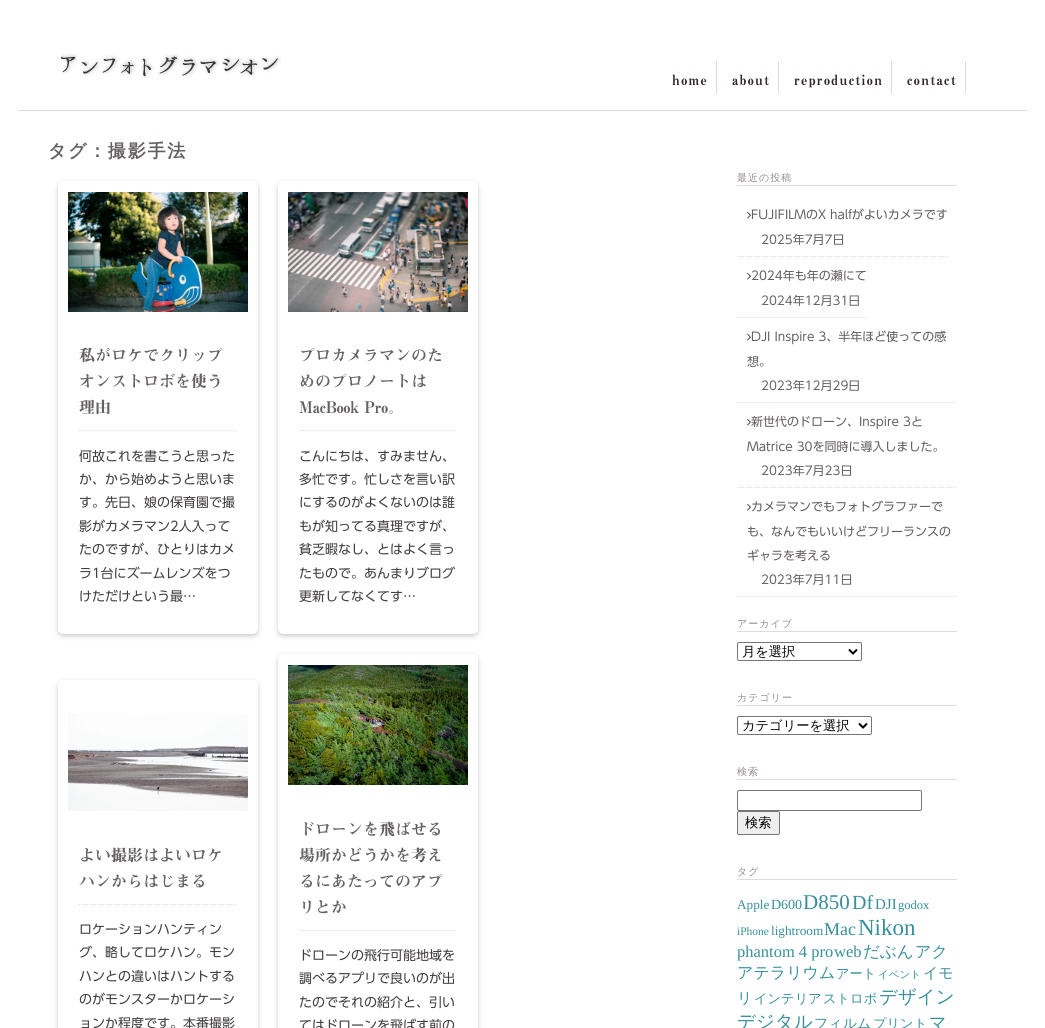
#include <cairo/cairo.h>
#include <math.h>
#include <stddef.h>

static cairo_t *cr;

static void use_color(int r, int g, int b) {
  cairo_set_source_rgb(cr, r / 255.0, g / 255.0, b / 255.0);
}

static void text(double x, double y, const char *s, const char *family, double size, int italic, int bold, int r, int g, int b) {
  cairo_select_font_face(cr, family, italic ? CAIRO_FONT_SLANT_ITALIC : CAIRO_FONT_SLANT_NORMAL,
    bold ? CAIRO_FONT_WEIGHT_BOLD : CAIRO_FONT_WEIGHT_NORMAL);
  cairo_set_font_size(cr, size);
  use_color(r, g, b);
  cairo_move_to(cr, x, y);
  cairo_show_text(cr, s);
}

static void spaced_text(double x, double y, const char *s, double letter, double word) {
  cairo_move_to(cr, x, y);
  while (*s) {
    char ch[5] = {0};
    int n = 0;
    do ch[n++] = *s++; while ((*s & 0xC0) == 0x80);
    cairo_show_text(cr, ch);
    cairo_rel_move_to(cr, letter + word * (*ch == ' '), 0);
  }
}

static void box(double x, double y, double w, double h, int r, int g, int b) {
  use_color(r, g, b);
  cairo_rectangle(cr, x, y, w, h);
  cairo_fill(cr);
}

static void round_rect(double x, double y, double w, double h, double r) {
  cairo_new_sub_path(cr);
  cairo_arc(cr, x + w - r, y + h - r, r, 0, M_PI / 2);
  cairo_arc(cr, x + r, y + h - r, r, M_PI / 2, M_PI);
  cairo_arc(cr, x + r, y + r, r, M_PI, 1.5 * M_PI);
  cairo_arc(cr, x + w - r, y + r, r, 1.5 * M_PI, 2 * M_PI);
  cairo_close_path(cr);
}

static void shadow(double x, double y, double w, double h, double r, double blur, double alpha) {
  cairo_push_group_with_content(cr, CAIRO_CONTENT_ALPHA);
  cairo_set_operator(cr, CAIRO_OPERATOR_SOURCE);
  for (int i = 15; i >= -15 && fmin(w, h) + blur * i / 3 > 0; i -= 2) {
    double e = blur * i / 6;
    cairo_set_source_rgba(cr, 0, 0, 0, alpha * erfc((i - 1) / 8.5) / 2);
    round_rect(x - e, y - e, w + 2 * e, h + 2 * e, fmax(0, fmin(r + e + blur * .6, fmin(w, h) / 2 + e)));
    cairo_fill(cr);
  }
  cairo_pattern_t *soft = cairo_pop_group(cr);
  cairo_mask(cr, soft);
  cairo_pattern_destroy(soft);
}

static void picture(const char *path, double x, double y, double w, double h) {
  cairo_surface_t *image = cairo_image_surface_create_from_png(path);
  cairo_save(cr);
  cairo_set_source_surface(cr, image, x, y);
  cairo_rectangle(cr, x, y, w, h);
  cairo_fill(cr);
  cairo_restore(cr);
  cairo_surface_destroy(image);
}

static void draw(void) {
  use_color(255, 255, 255);
  cairo_paint(cr);
  box(18, 110, 1009, 1, 221, 221, 221);
  picture("img_01.png", 60, 53, 221, 25);
  box(716, 61, 1, 33, 221, 221, 221);
  box(778, 61, 1, 33, 221, 221, 221);
  box(891, 61, 1, 33, 221, 221, 221);
  box(965, 61, 1, 33, 221, 221, 221);
  use_color(204, 204, 204);
  shadow(58, 183, 200, 453, 5, 2.5, 1);
  use_color(255, 255, 255);
  round_rect(60.5, 183.5, 195, 448, 2.5);
  cairo_fill_preserve(cr);
  cairo_set_line_width(cr, 5);
  cairo_stroke(cr);
  picture("img_02.png", 68, 192, 180, 120);
  cairo_new_path(cr);
  cairo_move_to(cr, 79, 430.5);
  cairo_line_to(cr, 237, 430.5);
  use_color(221, 221, 221);
  cairo_set_line_width(cr, 1);
  cairo_set_dash(cr, (double[]){1, 1}, 2, 0);
  cairo_stroke(cr);
  use_color(204, 204, 204);
  shadow(278, 183, 200, 453, 5, 2.5, 1);
  use_color(255, 255, 255);
  round_rect(280.5, 183.5, 195, 448, 2.5);
  cairo_fill_preserve(cr);
  cairo_set_line_width(cr, 5);
  cairo_set_dash(cr, NULL, 0, 0);
  cairo_stroke(cr);
  picture("img_03.png", 288, 192, 180, 120);
  cairo_new_path(cr);
  cairo_move_to(cr, 299, 430.5);
  cairo_line_to(cr, 457, 430.5);
  use_color(221, 221, 221);
  cairo_set_line_width(cr, 1);
  cairo_set_dash(cr, (double[]){1, 1}, 2, 0);
  cairo_stroke(cr);
  use_color(204, 204, 204);
  shadow(58, 682, 200, 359, 5, 2.5, 1);
  use_color(255, 255, 255);
  round_rect(60.5, 682.5, 195, 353, 2.5);
  cairo_fill_preserve(cr);
  cairo_set_line_width(cr, 5);
  cairo_set_dash(cr, NULL, 0, 0);
  cairo_stroke(cr);
  picture("img_04.png", 68, 713, 180, 98);
  cairo_new_path(cr);
  cairo_move_to(cr, 79, 904.5);
  cairo_line_to(cr, 237, 904.5);
  use_color(221, 221, 221);
  cairo_set_line_width(cr, 1);
  cairo_set_dash(cr, (double[]){1, 1}, 2, 0);
  cairo_stroke(cr);
  use_color(204, 204, 204);
  shadow(278, 656, 200, 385, 5, 2.5, 1);
  use_color(255, 255, 255);
  round_rect(280.5, 656.5, 195, 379, 2.5);
  cairo_fill_preserve(cr);
  cairo_set_line_width(cr, 5);
  cairo_set_dash(cr, NULL, 0, 0);
  cairo_stroke(cr);
  picture("img_05.png", 288, 665, 180, 120);
  cairo_new_path(cr);
  cairo_move_to(cr, 299, 930.5);
  cairo_line_to(cr, 457, 930.5);
  use_color(221, 221, 221);
  cairo_set_line_width(cr, 1);
  cairo_set_dash(cr, (double[]){1, 1}, 2, 0);
  cairo_stroke(cr);
  box(737, 185, 220, 1, 221, 221, 221);
  cairo_new_path(cr);
  cairo_move_to(cr, 737, 256.5);
  cairo_line_to(cr, 948, 256.5);
  cairo_stroke(cr);
  picture("img_06.png", 747, 211, 4, 8);
  cairo_new_path(cr);
  cairo_move_to(cr, 737, 317.5);
  cairo_line_to(cr, 867, 317.5);
  cairo_stroke(cr);
  picture("img_06.png", 747, 272, 4, 8);
  cairo_new_path(cr);
  cairo_move_to(cr, 737, 402.5);
  cairo_line_to(cr, 957, 402.5);
  cairo_stroke(cr);
  picture("img_06.png", 747, 333, 4, 8);
  cairo_new_path(cr);
  cairo_move_to(cr, 737, 487.5);
  cairo_line_to(cr, 957, 487.5);
  cairo_stroke(cr);
  picture("img_06.png", 747, 418, 4, 8);
  cairo_new_path(cr);
  cairo_move_to(cr, 737, 596.5);
  cairo_line_to(cr, 957, 596.5);
  cairo_stroke(cr);
  picture("img_06.png", 747, 503, 4, 8);
  box(737, 631, 220, 1, 221, 221, 221);
  round_rect(737.5, 642.5, 124, 18, 1.5);
  use_color(118, 118, 118);
  cairo_set_dash(cr, NULL, 0, 0);
  cairo_stroke(cr);
  cairo_new_path(cr);
  cairo_move_to(cr, 849, 649.5);
  cairo_line_to(cr, 853, 653.5);
  cairo_line_to(cr, 857, 649.5);
  use_color(0, 0, 0);
  cairo_set_line_width(cr, 2);
  cairo_stroke(cr);
  box(737, 705, 220, 1, 221, 221, 221);
  round_rect(737.5, 716.5, 134, 18, 1.5);
  use_color(118, 118, 118);
  cairo_set_line_width(cr, 1);
  cairo_stroke(cr);
  cairo_new_path(cr);
  cairo_move_to(cr, 859, 723.5);
  cairo_line_to(cr, 863, 727.5);
  cairo_line_to(cr, 867, 723.5);
  use_color(0, 0, 0);
  cairo_set_line_width(cr, 2);
  cairo_stroke(cr);
  box(737, 779, 220, 1, 221, 221, 221);
  round_rect(737.5, 790.5, 184, 20, 1.5);
  use_color(118, 118, 118);
  cairo_set_line_width(cr, 1);
  cairo_stroke(cr);
  use_color(239, 239, 239);
  round_rect(737.5, 811.5, 42, 23, 1.5);
  cairo_fill_preserve(cr);
  use_color(118, 118, 118);
  cairo_stroke(cr);
  box(737, 879, 220, 1, 221, 221, 221);
  cairo_select_font_face(cr, "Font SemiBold", CAIRO_FONT_SLANT_NORMAL, CAIRO_FONT_WEIGHT_NORMAL);
  cairo_set_font_size(cr, 14);
  use_color(51, 40, 40);
  spaced_text(672, 85, "home", 1.4, 0);
  spaced_text(732, 85, "about", 1.4, 0);
  spaced_text(794, 85, "reproduction", 1.4, 0);
  spaced_text(907, 85, "contact", 1.4, 0);
  cairo_select_font_face(cr, "WenQuanYi Zen Hei", CAIRO_FONT_SLANT_NORMAL, CAIRO_FONT_WEIGHT_BOLD);
  cairo_set_font_size(cr, 18);
  use_color(101, 96, 97);
  spaced_text(48, 157, "タグ：撮影手法", 1.75, 0);
  text(79, 361, "私がロケでクリップ", "Font SemiBold", 16, 0, 0, 101, 96, 97);
  text(79, 387, "オンストロボを使う", "Font SemiBold", 16, 0, 0, 101, 96, 97);
  text(79, 413, "理由", "Font SemiBold", 16, 0, 0, 101, 96, 97);
  text(79, 461, "何故これを書こうと思った", "Font", 13, 0, 0, 68, 64, 64);
  text(79, 484, "か、から始めようと思いま", "Font", 13, 0, 0, 68, 64, 64);
  text(79, 507, "す。先日、娘の保育園で撮", "Font", 13, 0, 0, 68, 64, 64);
  text(79, 531, "影がカメラマン2人入って", "Font", 13, 0, 0, 68, 64, 64);
  text(79, 554, "たのですが、ひとりはカメ", "Font", 13, 0, 0, 68, 64, 64);
  text(79, 578, "ラ1台にズームレンズをつ", "Font", 13, 0, 0, 68, 64, 64);
  text(79, 601, "けただけという最…", "Font", 13, 0, 0, 68, 64, 64);
  text(299, 361, "プロカメラマンのた", "Font SemiBold", 16, 0, 0, 101, 96, 97);
  text(299, 387, "めのプロノートは", "Font SemiBold", 16, 0, 0, 101, 96, 97);
  text(299, 413, "MacBook Pro。", "Font SemiBold", 16, 0, 0, 101, 96, 97);
  text(299, 461, "こんにちは、すみません、", "Font", 13, 0, 0, 68, 64, 64);
  text(299, 484, "多忙です。忙しさを言い訳", "Font", 13, 0, 0, 68, 64, 64);
  text(299, 507, "にするのがよくないのは誰", "Font", 13, 0, 0, 68, 64, 64);
  text(299, 531, "もが知ってる真理ですが、", "Font", 13, 0, 0, 68, 64, 64);
  text(299, 554, "貧乏暇なし、とはよく言っ", "Font", 13, 0, 0, 68, 64, 64);
  text(299, 578, "たもので。あんまりブログ", "Font", 13, 0, 0, 68, 64, 64);
  text(299, 601, "更新してなくてす…", "Font", 13, 0, 0, 68, 64, 64);
  text(79, 861, "よい撮影はよいロケ", "Font SemiBold", 16, 0, 0, 101, 96, 97);
  text(79, 887, "ハンからはじまる", "Font SemiBold", 16, 0, 0, 101, 96, 97);
  text(79, 934, "ロケーションハンティン", "Font", 13, 0, 0, 68, 64, 64);
  text(79, 957, "グ、略してロケハン。モン", "Font", 13, 0, 0, 68, 64, 64);
  text(79, 981, "ハンとの違いはハントする", "Font", 13, 0, 0, 68, 64, 64);
  text(79, 1004, "のがモンスターかロケーシ", "Font", 13, 0, 0, 68, 64, 64);
  text(79, 1028, "ョンか程度です。本番撮影", "Font", 13, 0, 0, 68, 64, 64);
  text(299, 835, "ドローンを飛ばせる", "Font SemiBold", 16, 0, 0, 101, 96, 97);
  text(299, 861, "場所かどうかを考え", "Font SemiBold", 16, 0, 0, 101, 96, 97);
  text(299, 887, "るにあたってのアプ", "Font SemiBold", 16, 0, 0, 101, 96, 97);
  text(299, 913, "リとか", "Font SemiBold", 16, 0, 0, 101, 96, 97);
  text(299, 960, "ドローンの飛行可能地域を", "Font", 13, 0, 0, 68, 64, 64);
  text(299, 983, "調べるアプリで良いのが出", "Font", 13, 0, 0, 68, 64, 64);
  text(299, 1007, "たのでそれの紹介と、引い", "Font", 13, 0, 0, 68, 64, 64);
  text(299, 1030, "てはドローンを飛ばす前の", "Font", 13, 0, 0, 68, 64, 64);
  cairo_select_font_face(cr, "WenQuanYi Zen Hei Medium", CAIRO_FONT_SLANT_NORMAL, CAIRO_FONT_WEIGHT_NORMAL);
  cairo_set_font_size(cr, 10);
  use_color(146, 138, 140);
  spaced_text(737, 181, "最近の投稿", 1, 0);
  text(751, 219, "FUJIFILMのX halfがよいカメラです", "Font", 12, 0, 0, 101, 96, 97);
  text(761, 244, "2025年7月7日", "Font", 12, 0, 0, 102, 102, 102);
  text(751, 280, "2024年も年の瀬にて", "Font", 12, 0, 0, 101, 96, 97);
  text(761, 305, "2024年12月31日", "Font", 12, 0, 0, 102, 102, 102);
  text(751, 341, "DJI Inspire 3、半年ほど使っての感", "Font", 12, 0, 0, 101, 96, 97);
  text(747, 366, "想。", "Font", 12, 0, 0, 101, 96, 97);
  text(761, 390, "2023年12月29日", "Font", 12, 0, 0, 102, 102, 102);
  text(751, 426, "新世代のドローン、Inspire 3と", "Font", 12, 0, 0, 101, 96, 97);
  text(747, 451, "Matrice 30を同時に導入しました。", "Font", 12, 0, 0, 101, 96, 97);
  text(761, 475, "2023年7月23日", "Font", 12, 0, 0, 102, 102, 102);
  text(751, 511, "カメラマンでもフォトグラファーで", "Font", 12, 0, 0, 101, 96, 97);
  text(747, 536, "も、なんでもいいけどフリーランスの", "Font", 12, 0, 0, 101, 96, 97);
  text(747, 560, "ギャラを考える", "Font", 12, 0, 0, 101, 96, 97);
  text(761, 584, "2023年7月11日", "Font", 12, 0, 0, 102, 102, 102);
  cairo_select_font_face(cr, "WenQuanYi Zen Hei Medium", CAIRO_FONT_SLANT_NORMAL, CAIRO_FONT_WEIGHT_NORMAL);
  cairo_set_font_size(cr, 10);
  use_color(146, 138, 140);
  spaced_text(737, 627, "アーカイブ", 1, 0);
  text(742, 656, "月を選択", "WenQuanYi Zen Hei Medium", 13.25, 0, 0, 0, 0, 0);
  cairo_set_font_size(cr, 10);
  use_color(146, 138, 140);
  spaced_text(737, 701, "カテゴリー", 1, 0);
  text(742, 730, "カテゴリーを選択", "WenQuanYi Zen Hei Medium", 13.25, 0, 0, 0, 0, 0);
  cairo_set_font_size(cr, 10);
  use_color(146, 138, 140);
  spaced_text(737, 775, "検索", 1, 0);
  text(745, 827, "検索", "WenQuanYi Zen Hei Medium", 13.25, 0, 0, 0, 0, 0);
  cairo_set_font_size(cr, 10);
  use_color(146, 138, 140);
  spaced_text(737, 875, "タグ", 1, 0);
  text(737, 909, "Apple", "Liberation Serif", 13.25, 0, 0, 55, 143, 155);
  text(771, 909, "D600", "Liberation Serif", 14, 0, 0, 55, 143, 155);
  text(803, 909, "D850", "Liberation Serif", 21, 0, 0, 55, 143, 155);
  text(852, 909, "Df", "Liberation Serif", 20, 0, 0, 55, 143, 155);
  text(875, 909, "DJI", "Liberation Serif", 15, 0, 0, 55, 143, 155);
  text(898, 909, "godox", "Liberation Serif", 12.5, 0, 0, 55, 143, 155);
  text(737, 935, "iPhone", "Liberation Serif", 11.5, 0, 0, 55, 143, 155);
  text(771, 935, "lightroom", "Liberation Serif", 13.25, 0, 0, 55, 143, 155);
  text(824, 935, "Mac", "Liberation Serif", 18, 0, 0, 55, 143, 155);
  text(858, 935, "Nikon", "Liberation Serif", 23, 0, 0, 55, 143, 155);
  text(737, 957, "phantom 4 pro", "Liberation Serif", 16.5, 0, 0, 55, 143, 155);
  text(834, 957, "web", "Liberation Serif", 16.5, 0, 0, 55, 143, 155);
  text(863, 957, "だぶん", "WenQuanYi Zen Hei Medium", 16.5, 0, 0, 55, 143, 155);
  text(915, 957, "アク", "WenQuanYi Zen Hei Medium", 16, 0, 0, 55, 143, 155);
  text(737, 978, "アテラリウム", "WenQuanYi Zen Hei Medium", 16, 0, 0, 55, 143, 155);
  text(836, 978, "アート", "WenQuanYi Zen Hei Medium", 13.25, 0, 0, 55, 143, 155);
  text(878, 978, "イベント", "WenQuanYi Zen Hei Medium", 10.5, 0, 0, 55, 143, 155);
  text(923, 978, "イモ", "WenQuanYi Zen Hei Medium", 15, 0, 0, 55, 143, 155);
  text(737, 1003, "リ", "WenQuanYi Zen Hei Medium", 15, 0, 0, 55, 143, 155);
  text(754, 1003, "インテリア", "WenQuanYi Zen Hei Medium", 13.25, 0, 0, 55, 143, 155);
  text(823, 1003, "ストロボ", "WenQuanYi Zen Hei Medium", 13.25, 0, 0, 55, 143, 155);
  text(879, 1003, "デザイン", "WenQuanYi Zen Hei Medium", 18.5, 0, 0, 55, 143, 155);
  text(737, 1028, "デジタル", "WenQuanYi Zen Hei Medium", 18.5, 0, 0, 55, 143, 155);
  text(814, 1028, "フィルム", "WenQuanYi Zen Hei Medium", 14, 0, 0, 55, 143, 155);
  text(873, 1028, "プリント", "WenQuanYi Zen Hei Medium", 13.25, 0, 0, 55, 143, 155);
  text(929, 1028, "マ", "WenQuanYi Zen Hei Medium", 17, 0, 0, 55, 143, 155);
}

int main(void) {
  cairo_surface_t *surface = cairo_image_surface_create(CAIRO_FORMAT_RGB24, 1045, 1028);
  cr = cairo_create(surface);
  cairo_font_options_t *options = cairo_font_options_create();
  cairo_font_options_set_hint_metrics(options, CAIRO_HINT_METRICS_OFF);
  cairo_font_options_set_hint_style(options, CAIRO_HINT_STYLE_NONE);
  cairo_set_font_options(cr, options);
  cairo_set_miter_limit(cr, 4);
  draw();
  cairo_surface_write_to_png(surface, "out.png");
  cairo_font_options_destroy(options);
  cairo_destroy(cr);
  cairo_surface_destroy(surface);
  return 0;
}
